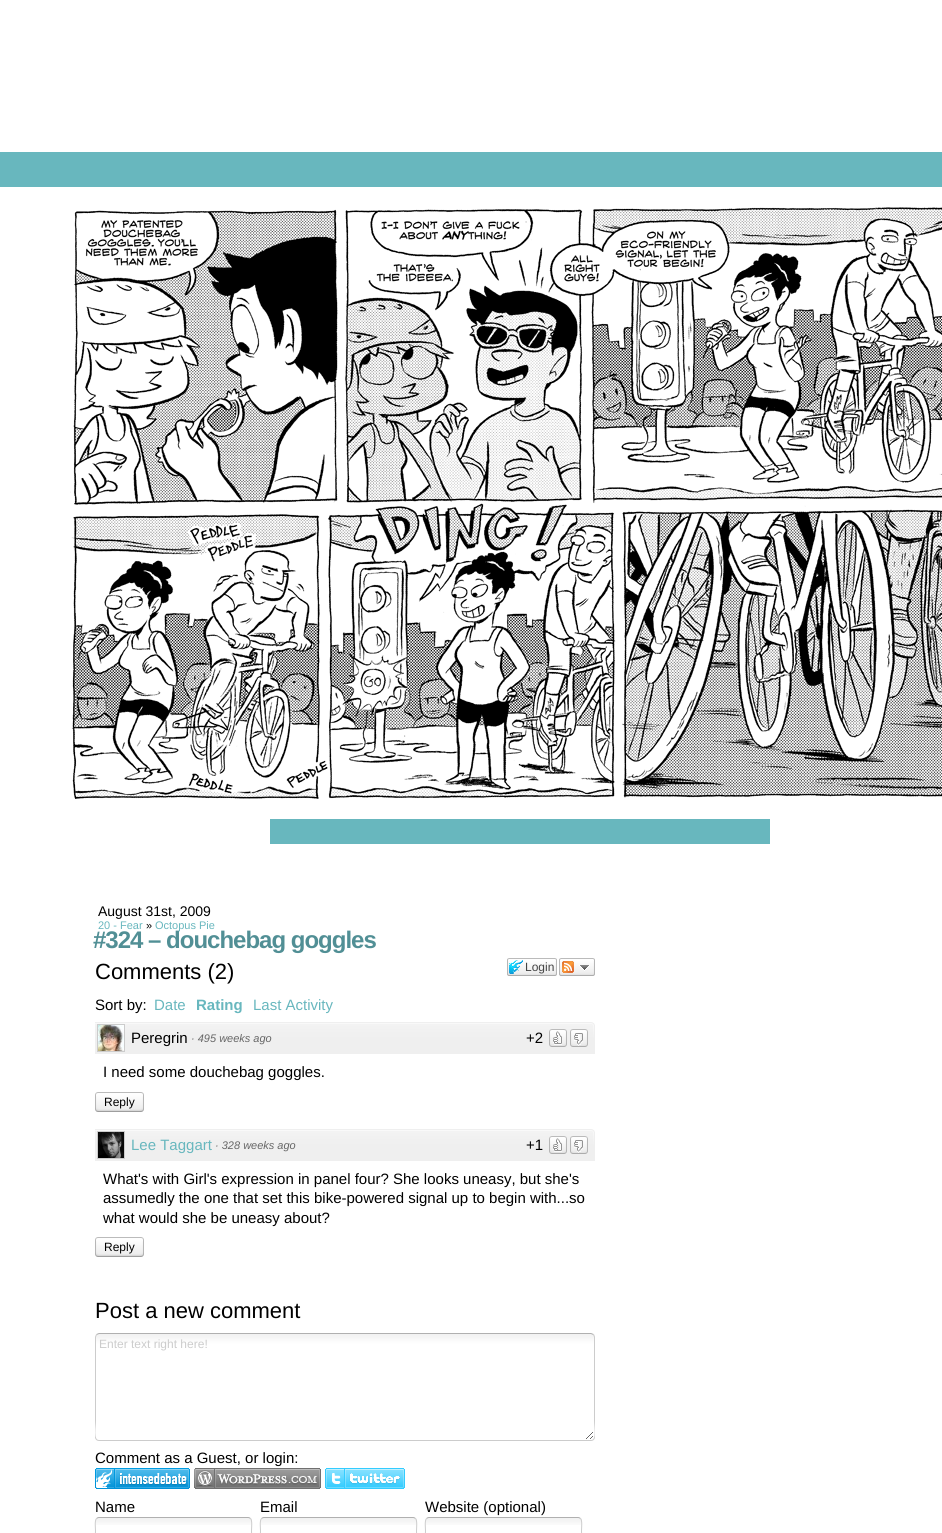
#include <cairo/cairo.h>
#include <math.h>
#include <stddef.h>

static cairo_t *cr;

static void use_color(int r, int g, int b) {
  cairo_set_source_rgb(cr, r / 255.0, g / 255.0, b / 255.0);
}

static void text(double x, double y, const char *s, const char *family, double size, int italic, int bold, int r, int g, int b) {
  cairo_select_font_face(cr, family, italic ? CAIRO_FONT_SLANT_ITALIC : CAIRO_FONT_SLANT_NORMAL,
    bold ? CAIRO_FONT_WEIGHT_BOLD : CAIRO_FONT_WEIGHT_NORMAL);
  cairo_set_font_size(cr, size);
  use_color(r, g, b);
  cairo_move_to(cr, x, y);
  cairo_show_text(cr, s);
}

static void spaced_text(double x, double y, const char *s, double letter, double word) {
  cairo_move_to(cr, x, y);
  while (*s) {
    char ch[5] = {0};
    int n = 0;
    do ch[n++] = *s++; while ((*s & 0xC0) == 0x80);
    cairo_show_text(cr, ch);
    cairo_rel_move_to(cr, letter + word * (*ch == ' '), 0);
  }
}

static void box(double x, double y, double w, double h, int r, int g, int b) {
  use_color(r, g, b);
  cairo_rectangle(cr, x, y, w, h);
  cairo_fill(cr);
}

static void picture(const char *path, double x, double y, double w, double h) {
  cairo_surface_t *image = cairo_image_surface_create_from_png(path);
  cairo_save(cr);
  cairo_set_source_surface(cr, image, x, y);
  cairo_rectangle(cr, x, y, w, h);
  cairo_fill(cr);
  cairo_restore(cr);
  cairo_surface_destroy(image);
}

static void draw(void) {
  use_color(255, 255, 255);
  cairo_paint(cr);
  box(0, 152, 942, 35, 104, 183, 190);
  picture("img_01.png", 70, 207, 872, 592);
  box(270, 819, 500, 25, 104, 183, 190);
  picture("img_02.png", 507, 958, 47, 18);
  picture("img_03.png", 554, 958, 3, 18);
  picture("img_04.png", 559, 958, 36, 18);
  picture("img_05.png", 95, 1022, 500, 32);
  box(97, 1024, 28, 28, 204, 204, 204);
  picture("img_06.png", 98, 1025, 26, 26);
  picture("img_07.png", 549, 1029, 18, 18);
  picture("img_08.png", 570, 1029, 18, 18);
  picture("img_09.png", 95, 1092, 9, 20);
  picture("img_10.png", 104, 1092, 40, 20);
  picture("img_05.png", 95, 1129, 500, 32);
  box(97, 1131, 28, 28, 204, 204, 204);
  picture("img_11.png", 98, 1132, 26, 26);
  picture("img_07.png", 549, 1136, 18, 18);
  picture("img_08.png", 570, 1136, 18, 18);
  picture("img_09.png", 95, 1237, 9, 20);
  picture("img_10.png", 104, 1237, 40, 20);
  picture("img_12.png", 96, 1334, 499, 105);
  cairo_new_path(cr);
  cairo_move_to(cr, 96.5, 1334.5);
  cairo_line_to(cr, 99, 1333.5);
  cairo_line_to(cr, 591, 1333.5);
  cairo_line_to(cr, 593.5, 1334.5);
  use_color(176, 176, 176);
  cairo_set_line_width(cr, 1);
  cairo_stroke(cr);
  cairo_save(cr);
  cairo_rectangle(cr, 95, 1333, 500, 112);
  cairo_clip(cr);
  cairo_new_path(cr);
  cairo_move_to(cr, 593.5, 1334.5);
  cairo_line_to(cr, 594.5, 1337);
  cairo_line_to(cr, 594.5, 1420.5);
  cairo_curve_to(cr, 594.5, 1427, 597.5, 1440.5, 591, 1440.5);
  cairo_line_to(cr, 99, 1440.5);
  cairo_curve_to(cr, 92.5, 1440.5, 95.5, 1427, 95.5, 1420.5);
  cairo_line_to(cr, 95.5, 1337);
  cairo_line_to(cr, 96.5, 1334.5);
  use_color(204, 204, 204);
  cairo_stroke(cr);
  cairo_restore(cr);
  picture("img_13.png", 95, 1468, 95, 21);
  picture("img_14.png", 194, 1468, 127, 21);
  picture("img_15.png", 325, 1468, 80, 21);
  picture("img_16.png", 96, 1518, 156, 7);
  cairo_new_path(cr);
  cairo_move_to(cr, 96.5, 1518.5);
  cairo_curve_to(cr, 97, 1518, 98, 1517.5, 99, 1517.5);
  cairo_line_to(cr, 248, 1517.5);
  cairo_curve_to(cr, 249, 1517.5, 250, 1518, 250.5, 1518.5);
  cairo_stroke(cr);
  cairo_new_path(cr);
  cairo_move_to(cr, 250.5, 1518.5);
  cairo_curve_to(cr, 252.5, 1520.5, 251.5, 1528, 251.5, 1531);
  cairo_curve_to(cr, 251.5, 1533.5, 252.5, 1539.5, 248, 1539.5);
  cairo_line_to(cr, 99, 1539.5);
  cairo_curve_to(cr, 94.5, 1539.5, 95.5, 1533.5, 95.5, 1531);
  cairo_curve_to(cr, 95.5, 1528, 94.5, 1520.5, 96.5, 1518.5);
  use_color(204, 204, 204);
  cairo_stroke(cr);
  picture("img_16.png", 261, 1518, 156, 7);
  cairo_new_path(cr);
  cairo_move_to(cr, 261.5, 1518.5);
  cairo_curve_to(cr, 262, 1518, 263, 1517.5, 264, 1517.5);
  cairo_line_to(cr, 413, 1517.5);
  cairo_curve_to(cr, 414, 1517.5, 415, 1518, 415.5, 1518.5);
  use_color(176, 176, 176);
  cairo_stroke(cr);
  cairo_new_path(cr);
  cairo_move_to(cr, 415.5, 1518.5);
  cairo_curve_to(cr, 417.5, 1520.5, 416.5, 1528, 416.5, 1531);
  cairo_curve_to(cr, 416.5, 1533.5, 417.5, 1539.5, 413, 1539.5);
  cairo_line_to(cr, 264, 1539.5);
  cairo_curve_to(cr, 259.5, 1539.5, 260.5, 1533.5, 260.5, 1531);
  cairo_curve_to(cr, 260.5, 1528, 259.5, 1520.5, 261.5, 1518.5);
  use_color(204, 204, 204);
  cairo_stroke(cr);
  picture("img_16.png", 426, 1518, 156, 7);
  cairo_new_path(cr);
  cairo_move_to(cr, 426.5, 1518.5);
  cairo_curve_to(cr, 427, 1518, 428, 1517.5, 429, 1517.5);
  cairo_line_to(cr, 578, 1517.5);
  cairo_curve_to(cr, 579, 1517.5, 580, 1518, 580.5, 1518.5);
  use_color(176, 176, 176);
  cairo_stroke(cr);
  cairo_new_path(cr);
  cairo_move_to(cr, 580.5, 1518.5);
  cairo_curve_to(cr, 582.5, 1520.5, 581.5, 1528, 581.5, 1531);
  cairo_curve_to(cr, 581.5, 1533.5, 582.5, 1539.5, 578, 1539.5);
  cairo_line_to(cr, 429, 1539.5);
  cairo_curve_to(cr, 424.5, 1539.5, 425.5, 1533.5, 425.5, 1531);
  cairo_curve_to(cr, 425.5, 1528, 424.5, 1520.5, 426.5, 1518.5);
  use_color(204, 204, 204);
  cairo_stroke(cr);
  text(98, 916, "August 31st, 2009", "Liberation Sans", 14, 0, 0, 0, 0, 0);
  text(98, 929, "20 - Fear", "Liberation Sans", 11, 0, 0, 104, 183, 190);
  text(146, 929, "»", "Liberation Sans", 11, 0, 0, 0, 0, 0);
  text(155, 929, "Octopus Pie", "Liberation Sans", 11, 0, 0, 104, 183, 190);
  cairo_select_font_face(cr, "Liberation Sans", CAIRO_FONT_SLANT_NORMAL, CAIRO_FONT_WEIGHT_BOLD);
  cairo_set_font_size(cr, 24);
  use_color(81, 143, 149);
  spaced_text(93, 948, "#324 – douchebag goggles", -1, 0);
  text(95, 979, "Comments (2)", "Liberation Sans", 22, 0, 0, 0, 0, 0);
  text(525, 971, "Login", "Liberation Sans", 12, 0, 0, 68, 68, 68);
  text(95, 1010, "Sort by:", "Liberation Sans", 15, 0, 0, 0, 0, 0);
  text(154, 1010, "Date", "Liberation Sans", 15, 0, 0, 104, 183, 190);
  text(196, 1010, "Rating", "Liberation Sans", 15, 0, 1, 104, 183, 190);
  text(253, 1010, "Last Activity", "Liberation Sans", 15, 0, 0, 104, 183, 190);
  text(131, 1043, "Peregrin", "Liberation Sans", 15, 0, 0, 0, 0, 0);
  text(191, 1042, "· 495 weeks ago", "Liberation Sans", 11, 1, 0, 102, 102, 102);
  text(526, 1043, "+2", "Liberation Sans", 15, 0, 0, 0, 0, 0);
  text(103, 1077, "I need some douchebag goggles.", "Liberation Sans", 15, 0, 0, 0, 0, 0);
  text(104, 1106, "Reply", "Liberation Sans", 12, 0, 0, 0, 0, 0);
  text(131, 1150, "Lee Taggart", "Liberation Sans", 15, 0, 0, 104, 183, 190);
  text(215, 1149, "· 328 weeks ago", "Liberation Sans", 11, 1, 0, 102, 102, 102);
  text(526, 1150, "+1", "Liberation Sans", 15, 0, 0, 0, 0, 0);
  text(103, 1184, "What's with Girl's expression in panel four? She looks uneasy, but she's", "Liberation Sans", 15, 0, 0, 0, 0, 0);
  text(103, 1203, "assumedly the one that set this bike-powered signal up to begin with...so", "Liberation Sans", 15, 0, 0, 0, 0, 0);
  text(103, 1223, "what would she be uneasy about?", "Liberation Sans", 15, 0, 0, 0, 0, 0);
  text(104, 1251, "Reply", "Liberation Sans", 12, 0, 0, 0, 0, 0);
  text(95, 1318, "Post a new comment", "Liberation Sans", 22, 0, 0, 0, 0, 0);
  text(99, 1348, "Enter text right here!", "Liberation Sans", 12, 0, 0, 204, 204, 204);
  text(95, 1463, "Comment as a Guest, or login:", "Liberation Sans", 15, 0, 0, 0, 0, 0);
  text(95, 1512, "Name", "Liberation Sans", 15, 0, 0, 0, 0, 0);
  text(260, 1512, "Email", "Liberation Sans", 15, 0, 0, 0, 0, 0);
  text(425, 1512, "Website (optional)", "Liberation Sans", 15, 0, 0, 0, 0, 0);
}

int main(void) {
  cairo_surface_t *surface = cairo_image_surface_create(CAIRO_FORMAT_RGB24, 942, 1533);
  cr = cairo_create(surface);
  cairo_font_options_t *options = cairo_font_options_create();
  cairo_font_options_set_hint_metrics(options, CAIRO_HINT_METRICS_OFF);
  cairo_font_options_set_hint_style(options, CAIRO_HINT_STYLE_NONE);
  cairo_set_font_options(cr, options);
  cairo_set_miter_limit(cr, 4);
  draw();
  cairo_surface_write_to_png(surface, "out.png");
  cairo_font_options_destroy(options);
  cairo_destroy(cr);
  cairo_surface_destroy(surface);
  return 0;
}
